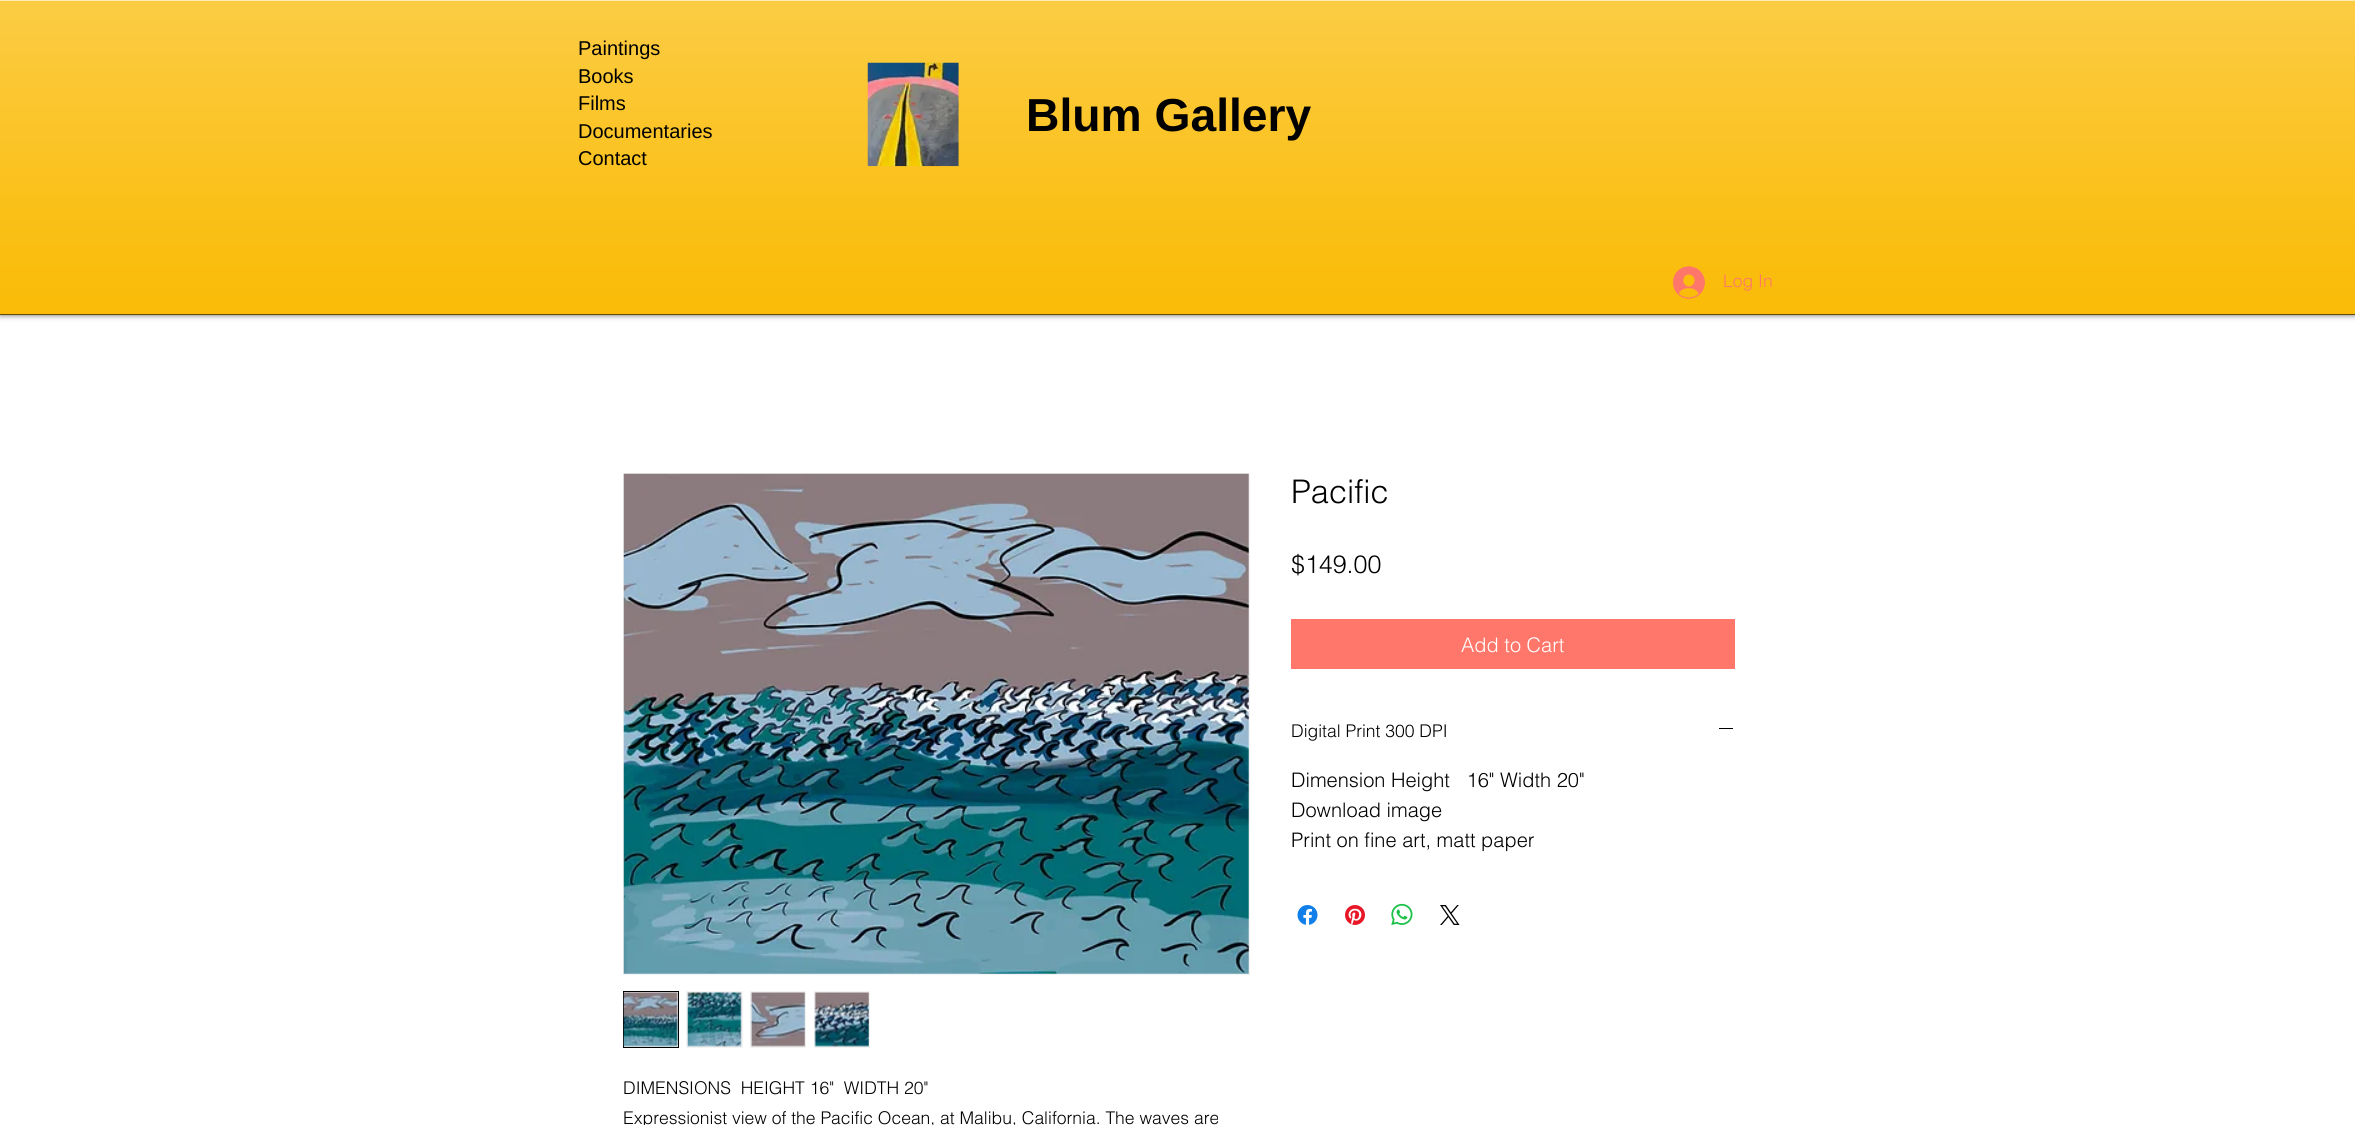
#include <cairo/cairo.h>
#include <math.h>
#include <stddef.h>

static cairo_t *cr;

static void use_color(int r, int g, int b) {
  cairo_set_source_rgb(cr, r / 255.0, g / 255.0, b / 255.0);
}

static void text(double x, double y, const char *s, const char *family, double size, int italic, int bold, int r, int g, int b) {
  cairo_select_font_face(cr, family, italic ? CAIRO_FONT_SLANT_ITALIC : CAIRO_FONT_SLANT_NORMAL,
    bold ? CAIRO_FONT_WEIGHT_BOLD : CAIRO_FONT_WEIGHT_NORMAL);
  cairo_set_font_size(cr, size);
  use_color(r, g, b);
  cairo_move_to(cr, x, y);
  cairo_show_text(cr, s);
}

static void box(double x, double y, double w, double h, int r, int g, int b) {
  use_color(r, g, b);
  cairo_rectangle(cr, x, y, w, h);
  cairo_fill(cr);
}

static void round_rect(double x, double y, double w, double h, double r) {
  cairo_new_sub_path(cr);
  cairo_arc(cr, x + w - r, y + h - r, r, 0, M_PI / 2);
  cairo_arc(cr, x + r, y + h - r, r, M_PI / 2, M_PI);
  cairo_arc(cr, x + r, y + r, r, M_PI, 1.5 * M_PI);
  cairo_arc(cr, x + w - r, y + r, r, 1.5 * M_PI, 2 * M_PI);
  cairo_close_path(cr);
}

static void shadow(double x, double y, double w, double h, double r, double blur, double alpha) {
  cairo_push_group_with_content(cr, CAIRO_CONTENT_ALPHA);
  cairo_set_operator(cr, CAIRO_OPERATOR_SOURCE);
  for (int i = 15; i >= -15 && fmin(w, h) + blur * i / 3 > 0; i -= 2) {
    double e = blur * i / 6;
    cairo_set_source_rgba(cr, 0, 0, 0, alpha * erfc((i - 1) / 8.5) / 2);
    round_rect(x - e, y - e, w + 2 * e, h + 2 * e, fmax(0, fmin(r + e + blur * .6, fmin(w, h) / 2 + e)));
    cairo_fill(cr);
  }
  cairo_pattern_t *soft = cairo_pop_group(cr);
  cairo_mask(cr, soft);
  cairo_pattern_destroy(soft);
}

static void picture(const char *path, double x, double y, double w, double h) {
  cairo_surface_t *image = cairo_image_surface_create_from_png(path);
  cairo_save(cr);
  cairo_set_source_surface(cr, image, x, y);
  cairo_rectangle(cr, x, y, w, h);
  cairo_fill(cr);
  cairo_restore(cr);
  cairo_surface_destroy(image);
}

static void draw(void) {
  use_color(255, 255, 255);
  cairo_paint(cr);
  use_color(0, 0, 0);
  shadow(0, 0, 2355, 315, 0, 3, 0.6);
  box(0, 1, 2355, 313, 250, 186, 2);
  picture("img_01.png", 0, 1, 2355, 313);
  box(0, 314, 2355, 1, 100, 75, 3);
  box(0, 0, 2355, 1, 254, 235, 180);
  picture("img_02.png", 867, 62, 92, 105);
  picture("img_03.png", 1673, 266, 32, 33);
  box(1291, 619, 444, 50, 255, 119, 107);
  box(1719, 728, 14, 1, 0, 0, 0);
  picture("img_04.png", 1297, 905, 21, 20);
  picture("img_05.png", 1345, 905, 20, 20);
  picture("img_06.png", 1391, 903, 22, 23);
  picture("img_07.png", 1440, 905, 20, 20);
  cairo_rectangle(cr, 623.5, 473.5, 626, 501);
  use_color(243, 243, 243);
  cairo_set_line_width(cr, 1);
  cairo_stroke(cr);
  picture("img_08.png", 623, 473, 626, 501);
  cairo_rectangle(cr, 623.5, 991.5, 55, 56);
  cairo_fill_preserve(cr);
  use_color(0, 0, 0);
  cairo_stroke(cr);
  picture("img_09.png", 623, 992, 55, 55);
  box(686, 991, 57, 57, 243, 243, 243);
  picture("img_10.png", 687, 992, 55, 55);
  box(750, 991, 56, 57, 243, 243, 243);
  picture("img_11.png", 750, 992, 56, 55);
  box(814, 991, 56, 57, 243, 243, 243);
  picture("img_12.png", 814, 992, 55, 55);
  text(578, 55, "Paintings", "Liberation Sans", 20, 0, 0, 0, 0, 0);
  text(578, 83, "Books", "Liberation Sans", 20, 0, 0, 0, 0, 0);
  text(578, 110, "Films", "Liberation Sans", 20, 0, 0, 0, 0, 0);
  text(578, 138, "Documentaries", "Liberation Sans", 20, 0, 0, 0, 0, 0);
  text(578, 165, "Contact", "Liberation Sans", 20, 0, 0, 0, 0, 0);
  text(1026, 131, "Blum Gallery", "Liberation Sans", 46.25, 0, 1, 0, 0, 0);
  text(1723, 287, "Log In", "helvetica Light", 17.5, 0, 0, 255, 119, 107);
  text(1291, 503, "Pacific", "helvetica Light", 32.5, 0, 0, 0, 0, 0);
  text(1291, 573, "$149.00", "helvetica Light", 25, 0, 0, 0, 0, 0);
  text(1461, 652, "Add to Cart", "helvetica Light", 20, 0, 0, 255, 255, 255);
  text(1291, 737, "Digital Print 300 DPI", "helvetica Light", 17.5, 0, 0, 0, 0, 0);
  text(1291, 787, "Dimension Height   16\" Width 20\"", "helvetica Light", 20, 0, 0, 0, 0, 0);
  text(1291, 817, "Download image", "helvetica Light", 20, 0, 0, 0, 0, 0);
  text(1291, 847, "Print on fine art, matt paper", "helvetica Light", 20, 0, 0, 0, 0, 0);
  text(623, 1094, "DIMENSIONS  HEIGHT 16\"  WIDTH 20\"", "helvetica Light", 17.5, 0, 0, 0, 0, 0);
  text(623, 1124, "Expressionist view of the Pacific Ocean, at Malibu, California. The waves are", "helvetica Light", 17.5, 0, 0, 0, 0, 0);
}

int main(void) {
  cairo_surface_t *surface = cairo_image_surface_create(CAIRO_FORMAT_RGB24, 2355, 1125);
  cr = cairo_create(surface);
  cairo_font_options_t *options = cairo_font_options_create();
  cairo_font_options_set_hint_metrics(options, CAIRO_HINT_METRICS_OFF);
  cairo_font_options_set_hint_style(options, CAIRO_HINT_STYLE_NONE);
  cairo_set_font_options(cr, options);
  cairo_set_miter_limit(cr, 4);
  draw();
  cairo_surface_write_to_png(surface, "out.png");
  cairo_font_options_destroy(options);
  cairo_destroy(cr);
  cairo_surface_destroy(surface);
  return 0;
}
